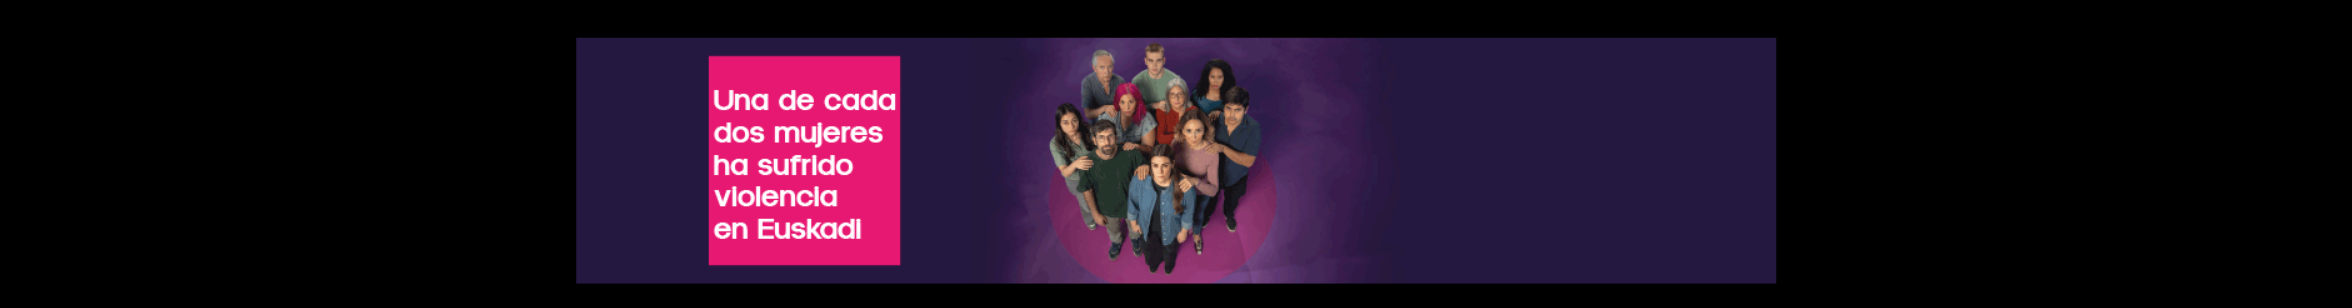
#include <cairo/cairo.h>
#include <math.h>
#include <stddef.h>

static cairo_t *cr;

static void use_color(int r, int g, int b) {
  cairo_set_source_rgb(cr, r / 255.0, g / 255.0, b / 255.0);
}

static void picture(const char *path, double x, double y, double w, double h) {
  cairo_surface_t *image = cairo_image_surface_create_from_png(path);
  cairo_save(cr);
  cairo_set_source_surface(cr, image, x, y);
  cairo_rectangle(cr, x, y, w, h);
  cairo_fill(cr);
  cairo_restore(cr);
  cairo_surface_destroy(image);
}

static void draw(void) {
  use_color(0, 0, 0);
  cairo_paint(cr);
  picture("img_01.png", 576, 37, 1201, 247);
}

int main(void) {
  cairo_surface_t *surface = cairo_image_surface_create(CAIRO_FORMAT_RGB24, 2352, 308);
  cr = cairo_create(surface);
  cairo_font_options_t *options = cairo_font_options_create();
  cairo_font_options_set_hint_metrics(options, CAIRO_HINT_METRICS_OFF);
  cairo_font_options_set_hint_style(options, CAIRO_HINT_STYLE_NONE);
  cairo_set_font_options(cr, options);
  cairo_set_miter_limit(cr, 4);
  draw();
  cairo_surface_write_to_png(surface, "out.png");
  cairo_font_options_destroy(options);
  cairo_destroy(cr);
  cairo_surface_destroy(surface);
  return 0;
}
